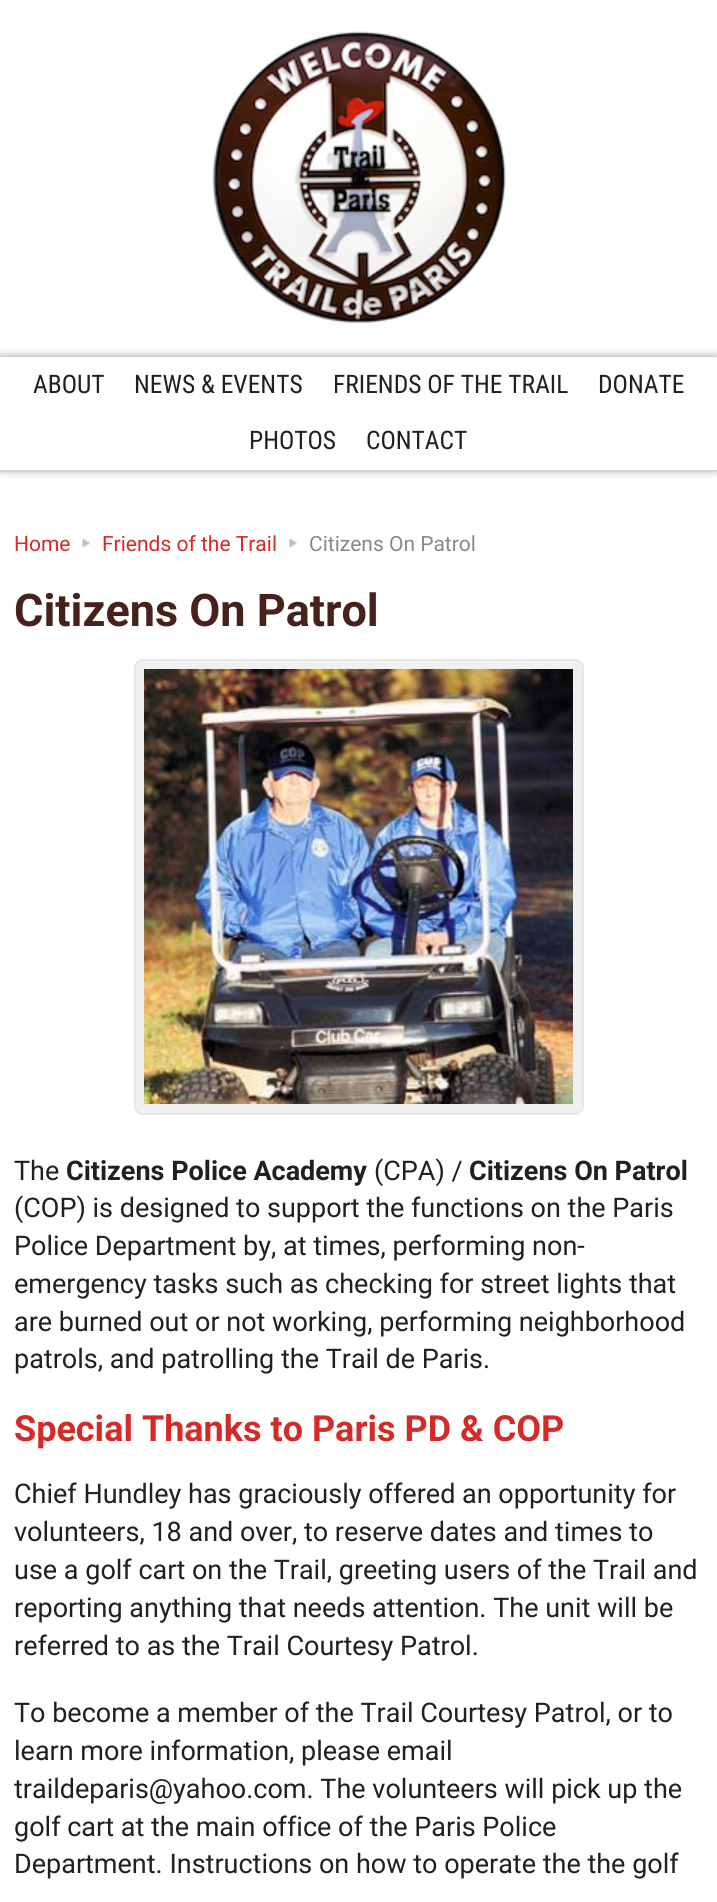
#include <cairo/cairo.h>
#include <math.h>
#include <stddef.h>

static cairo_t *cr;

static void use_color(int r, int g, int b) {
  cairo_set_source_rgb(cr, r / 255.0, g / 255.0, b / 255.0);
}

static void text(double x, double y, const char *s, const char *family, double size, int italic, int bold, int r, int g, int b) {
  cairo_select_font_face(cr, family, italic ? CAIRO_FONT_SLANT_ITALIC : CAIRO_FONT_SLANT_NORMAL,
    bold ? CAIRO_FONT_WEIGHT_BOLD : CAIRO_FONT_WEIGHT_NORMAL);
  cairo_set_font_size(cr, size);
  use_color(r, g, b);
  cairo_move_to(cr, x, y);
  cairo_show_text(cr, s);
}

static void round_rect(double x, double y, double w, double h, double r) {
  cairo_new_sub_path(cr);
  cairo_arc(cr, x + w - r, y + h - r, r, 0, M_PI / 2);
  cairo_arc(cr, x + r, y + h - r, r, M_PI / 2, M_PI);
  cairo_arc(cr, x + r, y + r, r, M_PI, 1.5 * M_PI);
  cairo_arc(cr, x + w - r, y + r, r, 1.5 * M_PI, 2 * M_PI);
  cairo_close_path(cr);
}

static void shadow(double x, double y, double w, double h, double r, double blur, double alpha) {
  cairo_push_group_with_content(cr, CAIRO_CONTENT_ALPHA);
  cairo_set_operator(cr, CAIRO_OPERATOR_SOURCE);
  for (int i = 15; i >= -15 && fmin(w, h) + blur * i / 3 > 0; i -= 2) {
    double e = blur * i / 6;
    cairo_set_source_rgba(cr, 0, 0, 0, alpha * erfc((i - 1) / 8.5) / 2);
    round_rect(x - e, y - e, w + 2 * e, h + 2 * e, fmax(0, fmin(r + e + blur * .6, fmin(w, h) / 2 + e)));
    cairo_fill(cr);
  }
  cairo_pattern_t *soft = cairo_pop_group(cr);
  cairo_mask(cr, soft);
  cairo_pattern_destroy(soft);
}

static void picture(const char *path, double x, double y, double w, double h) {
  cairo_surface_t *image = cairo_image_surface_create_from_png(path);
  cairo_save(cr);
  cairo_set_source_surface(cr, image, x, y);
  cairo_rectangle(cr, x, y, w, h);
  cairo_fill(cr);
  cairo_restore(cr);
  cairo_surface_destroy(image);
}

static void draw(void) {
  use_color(255, 255, 255);
  cairo_paint(cr);
  picture("img_01.png", 212, 31, 294, 292);
  cairo_save(cr);
  cairo_set_fill_rule(cr, CAIRO_FILL_RULE_EVEN_ODD);
  cairo_new_path(cr);
  cairo_move_to(cr, 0, 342);
  cairo_line_to(cr, 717, 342);
  cairo_line_to(cr, 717, 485);
  cairo_line_to(cr, 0, 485);
  cairo_close_path(cr);
  cairo_move_to(cr, 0, 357);
  cairo_line_to(cr, 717, 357);
  cairo_line_to(cr, 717, 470);
  cairo_line_to(cr, 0, 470);
  cairo_close_path(cr);
  cairo_clip(cr);
  use_color(153, 153, 153);
  shadow(0, 357, 717, 113, 0, 4.5, 1);
  cairo_restore(cr);
  cairo_set_source_rgba(cr, 1, 1, 1, 0.43);
  cairo_rectangle(cr, 0, 469, 717, 1);
  cairo_fill(cr);
  picture("img_02.png", 82, 538, 8, 10);
  picture("img_03.png", 289, 538, 8, 10);
  use_color(240, 240, 241);
  round_rect(135, 660, 448, 454, 8);
  cairo_fill_preserve(cr);
  use_color(231, 231, 231);
  cairo_stroke(cr);
  picture("img_04.png", 144, 669, 429, 435);
  text(33, 393, "ABOUT", "Roboto Condensed", 25.5, 0, 0, 35, 31, 32);
  text(134, 393, "NEWS & EVENTS", "Roboto Condensed", 25.5, 0, 0, 35, 31, 32);
  text(333, 393, "FRIENDS OF THE TRAIL", "Roboto Condensed", 25.5, 0, 0, 35, 31, 32);
  text(598, 393, "DONATE", "Roboto Condensed", 25.5, 0, 0, 35, 31, 32);
  text(249, 449, "PHOTOS", "Roboto Condensed", 25.5, 0, 0, 35, 31, 32);
  text(366, 449, "CONTACT", "Roboto Condensed", 25.5, 0, 0, 35, 31, 32);
  text(14, 551, "Home", "Roboto", 21, 0, 0, 213, 43, 40);
  text(102, 551, "Friends of the Trail", "Roboto", 21, 0, 0, 213, 43, 40);
  text(309, 551, "Citizens On Patrol", "Roboto", 21, 0, 0, 134, 136, 138);
  text(14, 626, "Citizens On Patrol", "Roboto", 45, 0, 1, 71, 34, 27);
  text(14, 1180, "The", "Roboto", 27, 0, 0, 35, 31, 32);
  text(66, 1180, "Citizens Police Academy", "Roboto", 27, 0, 1, 35, 31, 32);
  text(374, 1180, "(CPA) /", "Roboto", 27, 0, 0, 35, 31, 32);
  text(469, 1180, "Citizens On Patrol", "Roboto", 27, 0, 1, 35, 31, 32);
  text(14, 1217, "(COP) is designed to support the functions on the Paris", "Roboto", 27, 0, 0, 35, 31, 32);
  text(14, 1255, "Police Department by, at times, performing non-", "Roboto", 27, 0, 0, 35, 31, 32);
  text(14, 1293, "emergency tasks such as checking for street lights that", "Roboto", 27, 0, 0, 35, 31, 32);
  text(14, 1331, "are burned out or not working, performing neighborhood", "Roboto", 27, 0, 0, 35, 31, 32);
  text(14, 1368, "patrols, and patrolling the Trail de Paris.", "Roboto", 27, 0, 0, 35, 31, 32);
  text(14, 1441, "Special Thanks to Paris PD & COP", "Roboto", 36, 0, 1, 213, 43, 40);
  text(14, 1503, "Chief Hundley has graciously offered an opportunity for", "Roboto", 27, 0, 0, 35, 31, 32);
  text(14, 1541, "volunteers, 18 and over, to reserve dates and times to", "Roboto", 27, 0, 0, 35, 31, 32);
  text(14, 1579, "use a golf cart on the Trail, greeting users of the Trail and", "Roboto", 27, 0, 0, 35, 31, 32);
  text(14, 1617, "reporting anything that needs attention. The unit will be", "Roboto", 27, 0, 0, 35, 31, 32);
  text(14, 1655, "referred to as the Trail Courtesy Patrol.", "Roboto", 27, 0, 0, 35, 31, 32);
  text(14, 1722, "To become a member of the Trail Courtesy Patrol, or to", "Roboto", 27, 0, 0, 35, 31, 32);
  text(14, 1760, "learn more information, please email", "Roboto", 27, 0, 0, 35, 31, 32);
  text(14, 1798, "traildeparis@yahoo.com. The volunteers will pick up the", "Roboto", 27, 0, 0, 35, 31, 32);
  text(14, 1836, "golf cart at the main office of the Paris Police", "Roboto", 27, 0, 0, 35, 31, 32);
  text(14, 1873, "Department. Instructions on how to operate the the golf", "Roboto", 27, 0, 0, 35, 31, 32);
}

int main(void) {
  cairo_surface_t *surface = cairo_image_surface_create(CAIRO_FORMAT_RGB24, 717, 1902);
  cr = cairo_create(surface);
  cairo_font_options_t *options = cairo_font_options_create();
  cairo_font_options_set_hint_metrics(options, CAIRO_HINT_METRICS_OFF);
  cairo_font_options_set_hint_style(options, CAIRO_HINT_STYLE_NONE);
  cairo_set_font_options(cr, options);
  cairo_set_miter_limit(cr, 4);
  draw();
  cairo_surface_write_to_png(surface, "out.png");
  cairo_font_options_destroy(options);
  cairo_destroy(cr);
  cairo_surface_destroy(surface);
  return 0;
}
